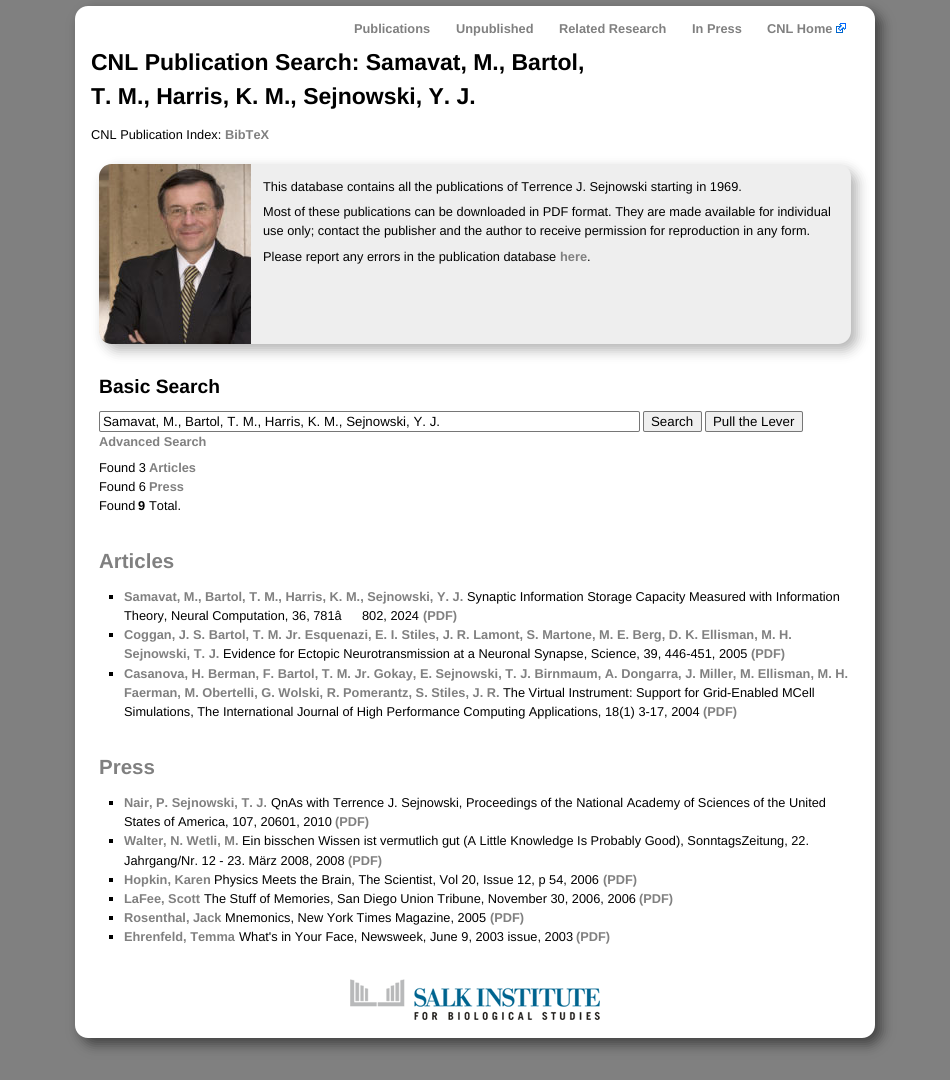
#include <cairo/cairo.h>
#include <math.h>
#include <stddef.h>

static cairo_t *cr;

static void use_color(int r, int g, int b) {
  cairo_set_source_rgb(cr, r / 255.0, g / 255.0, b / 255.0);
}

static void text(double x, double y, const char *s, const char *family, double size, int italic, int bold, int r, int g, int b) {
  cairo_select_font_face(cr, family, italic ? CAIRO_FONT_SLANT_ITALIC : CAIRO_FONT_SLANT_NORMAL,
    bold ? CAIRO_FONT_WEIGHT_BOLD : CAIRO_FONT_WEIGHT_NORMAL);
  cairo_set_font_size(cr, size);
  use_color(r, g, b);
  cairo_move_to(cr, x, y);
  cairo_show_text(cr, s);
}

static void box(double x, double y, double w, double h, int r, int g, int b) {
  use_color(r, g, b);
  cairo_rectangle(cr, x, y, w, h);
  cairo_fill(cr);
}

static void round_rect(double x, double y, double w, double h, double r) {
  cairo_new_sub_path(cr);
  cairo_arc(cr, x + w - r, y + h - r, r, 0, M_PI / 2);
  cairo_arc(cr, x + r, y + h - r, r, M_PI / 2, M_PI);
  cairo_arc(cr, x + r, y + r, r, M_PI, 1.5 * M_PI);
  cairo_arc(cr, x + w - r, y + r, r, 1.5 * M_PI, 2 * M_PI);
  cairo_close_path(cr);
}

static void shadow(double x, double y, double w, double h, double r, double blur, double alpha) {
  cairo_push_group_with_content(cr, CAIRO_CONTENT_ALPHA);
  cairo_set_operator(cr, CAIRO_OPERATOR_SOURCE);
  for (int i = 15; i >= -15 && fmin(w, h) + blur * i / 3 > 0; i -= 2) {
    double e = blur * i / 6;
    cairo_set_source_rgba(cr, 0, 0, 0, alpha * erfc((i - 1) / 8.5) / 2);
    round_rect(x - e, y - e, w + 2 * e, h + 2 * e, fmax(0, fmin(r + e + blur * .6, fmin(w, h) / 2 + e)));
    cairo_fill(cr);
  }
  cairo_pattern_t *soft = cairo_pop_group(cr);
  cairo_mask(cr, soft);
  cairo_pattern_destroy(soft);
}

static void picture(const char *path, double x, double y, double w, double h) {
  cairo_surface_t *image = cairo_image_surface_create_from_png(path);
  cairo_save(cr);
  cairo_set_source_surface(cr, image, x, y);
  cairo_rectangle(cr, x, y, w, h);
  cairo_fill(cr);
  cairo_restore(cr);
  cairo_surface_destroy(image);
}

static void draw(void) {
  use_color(128, 128, 128);
  cairo_paint(cr);
  use_color(0, 0, 0);
  shadow(81, 12, 800, 1032, 13, 6.5, 0.5);
  use_color(255, 255, 255);
  round_rect(75, 6, 800, 1032, 13);
  cairo_fill(cr);
  picture("img_01.png", 836, 23, 10, 10);
  use_color(0, 0, 0);
  shadow(105, 170, 752, 180, 13, 6.5, 0.3);
  use_color(238, 238, 238);
  round_rect(99, 164, 752, 180, 13);
  cairo_fill(cr);
  picture("img_02.png", 99, 164, 152, 180);
  round_rect(99.5, 411.5, 540, 20, 1.5);
  use_color(118, 118, 118);
  cairo_set_line_width(cr, 1);
  cairo_stroke(cr);
  use_color(239, 239, 239);
  round_rect(643.5, 411.5, 58, 20, 1.5);
  cairo_fill_preserve(cr);
  use_color(118, 118, 118);
  cairo_stroke(cr);
  use_color(239, 239, 239);
  round_rect(705.5, 411.5, 97, 20, 1.5);
  cairo_fill_preserve(cr);
  use_color(118, 118, 118);
  cairo_stroke(cr);
  box(109, 595, 4, 4, 0, 0, 0);
  box(109, 633, 4, 4, 0, 0, 0);
  box(109, 672, 4, 4, 0, 0, 0);
  box(109, 801, 4, 4, 0, 0, 0);
  box(109, 839, 4, 4, 0, 0, 0);
  box(109, 878, 4, 4, 0, 0, 0);
  box(109, 897, 4, 4, 0, 0, 0);
  box(109, 916, 4, 4, 0, 0, 0);
  box(109, 935, 4, 4, 0, 0, 0);
  picture("img_03.png", 350, 979, 250, 41);
  text(354, 33, "Publications", "Liberation Sans", 12.8, 0, 1, 128, 128, 128);
  text(456, 33, "Unpublished", "Liberation Sans", 12.8, 0, 1, 128, 128, 128);
  text(559, 33, "Related Research", "Liberation Sans", 12.8, 0, 1, 128, 128, 128);
  text(692, 33, "In Press", "Liberation Sans", 12.8, 0, 1, 128, 128, 128);
  text(767, 33, "CNL Home", "Liberation Sans", 12.8, 0, 1, 128, 128, 128);
  text(91, 70, "CNL Publication Search: Samavat, M., Bartol,", "Liberation Sans", 23, 0, 1, 0, 0, 0);
  text(91, 104, "T. M., Harris, K. M., Sejnowski, Y. J.", "Liberation Sans", 23, 0, 1, 0, 0, 0);
  text(91, 139, "CNL Publication Index:", "Liberation Sans", 12.8, 0, 0, 0, 0, 0);
  text(225, 139, "BibTeX", "Liberation Sans", 12.8, 0, 1, 128, 128, 128);
  text(263, 191, "This database contains all the publications of Terrence J. Sejnowski starting in 1969.", "Liberation Sans", 12.8, 0, 0, 0, 0, 0);
  text(263, 216, "Most of these publications can be downloaded in PDF format. They are made available for individual", "Liberation Sans", 12.8, 0, 0, 0, 0, 0);
  text(263, 235, "use only; contact the publisher and the author to receive permission for reproduction in any form.", "Liberation Sans", 12.8, 0, 0, 0, 0, 0);
  text(263, 261, "Please report any errors in the publication database", "Liberation Sans", 12.8, 0, 0, 0, 0, 0);
  text(560, 261, "here", "Liberation Sans", 12.8, 0, 1, 128, 128, 128);
  text(587, 261, ".", "Liberation Sans", 12.8, 0, 0, 0, 0, 0);
  text(99, 393, "Basic Search", "Liberation Sans", 19.25, 0, 1, 0, 0, 0);
  text(103, 426, "Samavat, M., Bartol, T. M., Harris, K. M., Sejnowski, Y. J.", "Liberation Sans", 13.3, 0, 0, 0, 0, 0);
  text(651, 426, "Search", "Liberation Sans", 13.3, 0, 0, 0, 0, 0);
  text(713, 426, "Pull the Lever", "Liberation Sans", 13.3, 0, 0, 0, 0, 0);
  text(99, 446, "Advanced Search", "Liberation Sans", 12.8, 0, 1, 128, 128, 128);
  text(99, 472, "Found 3", "Liberation Sans", 12.8, 0, 0, 0, 0, 0);
  text(149, 472, "Articles", "Liberation Sans", 12.8, 0, 1, 128, 128, 128);
  text(99, 491, "Found 6", "Liberation Sans", 12.8, 0, 0, 0, 0, 0);
  text(149, 491, "Press", "Liberation Sans", 12.8, 0, 1, 128, 128, 128);
  text(99, 510, "Found", "Liberation Sans", 12.8, 0, 0, 0, 0, 0);
  text(138, 510, "9", "Liberation Sans", 12.8, 0, 1, 0, 0, 0);
  text(149, 510, "Total.", "Liberation Sans", 12.8, 0, 0, 0, 0, 0);
  text(99, 568, "Articles", "Liberation Sans", 20.5, 0, 1, 128, 128, 128);
  text(124, 601, "Samavat, M., Bartol, T. M., Harris, K. M., Sejnowski, Y. J.", "Liberation Sans", 12.8, 0, 1, 128, 128, 128);
  text(467, 601, "Synaptic Information Storage Capacity Measured with Information", "Liberation Sans", 12.8, 0, 0, 0, 0, 0);
  text(124, 620, "Theory, Neural Computation, 36, 781â", "Liberation Sans", 12.8, 0, 0, 0, 0, 0);
  text(362, 620, "802, 2024", "Liberation Sans", 12.8, 0, 0, 0, 0, 0);
  text(423, 620, "(PDF)", "Liberation Sans", 12.8, 0, 1, 128, 128, 128);
  text(124, 639, "Coggan, J. S. Bartol, T. M. Jr. Esquenazi, E. I. Stiles, J. R. Lamont, S. Martone, M. E. Berg, D. K. Ellisman, M. H.", "Liberation Sans", 12.8, 0, 1, 128, 128, 128);
  text(124, 658, "Sejnowski, T. J.", "Liberation Sans", 12.8, 0, 1, 128, 128, 128);
  text(223, 658, "Evidence for Ectopic Neurotransmission at a Neuronal Synapse, Science, 39, 446-451, 2005", "Liberation Sans", 12.8, 0, 0, 0, 0, 0);
  text(751, 658, "(PDF)", "Liberation Sans", 12.8, 0, 1, 128, 128, 128);
  text(124, 678, "Casanova, H. Berman, F. Bartol, T. M. Jr. Gokay, E. Sejnowski, T. J. Birnmaum, A. Dongarra, J. Miller, M. Ellisman, M. H.", "Liberation Sans", 12.8, 0, 1, 128, 128, 128);
  text(124, 697, "Faerman, M. Obertelli, G. Wolski, R. Pomerantz, S. Stiles, J. R.", "Liberation Sans", 12.8, 0, 1, 128, 128, 128);
  text(503, 697, "The Virtual Instrument: Support for Grid-Enabled MCell", "Liberation Sans", 12.8, 0, 0, 0, 0, 0);
  text(124, 716, "Simulations, The International Journal of High Performance Computing Applications, 18(1) 3-17, 2004", "Liberation Sans", 12.8, 0, 0, 0, 0, 0);
  text(703, 716, "(PDF)", "Liberation Sans", 12.8, 0, 1, 128, 128, 128);
  text(99, 774, "Press", "Liberation Sans", 20.5, 0, 1, 128, 128, 128);
  text(124, 807, "Nair, P. Sejnowski, T. J.", "Liberation Sans", 12.8, 0, 1, 128, 128, 128);
  text(271, 807, "QnAs with Terrence J. Sejnowski, Proceedings of the National Academy of Sciences of the United", "Liberation Sans", 12.8, 0, 0, 0, 0, 0);
  text(124, 826, "States of America, 107, 20601, 2010", "Liberation Sans", 12.8, 0, 0, 0, 0, 0);
  text(335, 826, "(PDF)", "Liberation Sans", 12.8, 0, 1, 128, 128, 128);
  text(124, 845, "Walter, N. Wetli, M.", "Liberation Sans", 12.8, 0, 1, 128, 128, 128);
  text(242, 845, "Ein bisschen Wissen ist vermutlich gut (A Little Knowledge Is Probably Good), SonntagsZeitung, 22.", "Liberation Sans", 12.8, 0, 0, 0, 0, 0);
  text(124, 865, "Jahrgang/Nr. 12 - 23. März 2008, 2008", "Liberation Sans", 12.8, 0, 0, 0, 0, 0);
  text(348, 865, "(PDF)", "Liberation Sans", 12.8, 0, 1, 128, 128, 128);
  text(124, 884, "Hopkin, Karen", "Liberation Sans", 12.8, 0, 1, 128, 128, 128);
  text(214, 884, "Physics Meets the Brain, The Scientist, Vol 20, Issue 12, p 54, 2006", "Liberation Sans", 12.8, 0, 0, 0, 0, 0);
  text(603, 884, "(PDF)", "Liberation Sans", 12.8, 0, 1, 128, 128, 128);
  text(124, 903, "LaFee, Scott", "Liberation Sans", 12.8, 0, 1, 128, 128, 128);
  text(204, 903, "The Stuff of Memories, San Diego Union Tribune, November 30, 2006, 2006", "Liberation Sans", 12.8, 0, 0, 0, 0, 0);
  text(639, 903, "(PDF)", "Liberation Sans", 12.8, 0, 1, 128, 128, 128);
  text(124, 922, "Rosenthal, Jack", "Liberation Sans", 12.8, 0, 1, 128, 128, 128);
  text(225, 922, "Mnemonics, New York Times Magazine, 2005", "Liberation Sans", 12.8, 0, 0, 0, 0, 0);
  text(490, 922, "(PDF)", "Liberation Sans", 12.8, 0, 1, 128, 128, 128);
  text(124, 941, "Ehrenfeld, Temma", "Liberation Sans", 12.8, 0, 1, 128, 128, 128);
  text(239, 941, "What's in Your Face, Newsweek, June 9, 2003 issue, 2003", "Liberation Sans", 12.8, 0, 0, 0, 0, 0);
  text(576, 941, "(PDF)", "Liberation Sans", 12.8, 0, 1, 128, 128, 128);
}

int main(void) {
  cairo_surface_t *surface = cairo_image_surface_create(CAIRO_FORMAT_RGB24, 950, 1080);
  cr = cairo_create(surface);
  cairo_font_options_t *options = cairo_font_options_create();
  cairo_font_options_set_hint_metrics(options, CAIRO_HINT_METRICS_OFF);
  cairo_font_options_set_hint_style(options, CAIRO_HINT_STYLE_NONE);
  cairo_set_font_options(cr, options);
  cairo_set_miter_limit(cr, 4);
  draw();
  cairo_surface_write_to_png(surface, "out.png");
  cairo_font_options_destroy(options);
  cairo_destroy(cr);
  cairo_surface_destroy(surface);
  return 0;
}
